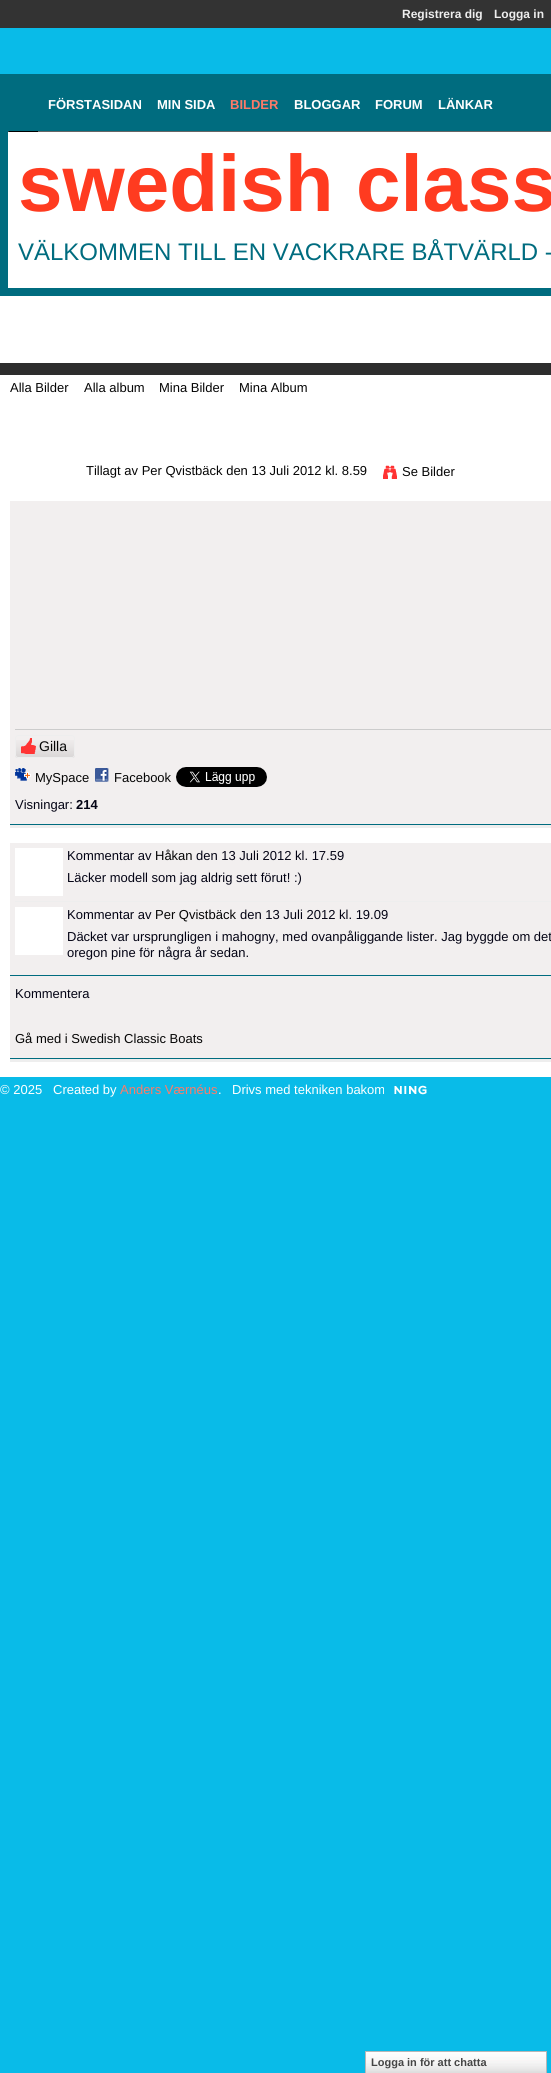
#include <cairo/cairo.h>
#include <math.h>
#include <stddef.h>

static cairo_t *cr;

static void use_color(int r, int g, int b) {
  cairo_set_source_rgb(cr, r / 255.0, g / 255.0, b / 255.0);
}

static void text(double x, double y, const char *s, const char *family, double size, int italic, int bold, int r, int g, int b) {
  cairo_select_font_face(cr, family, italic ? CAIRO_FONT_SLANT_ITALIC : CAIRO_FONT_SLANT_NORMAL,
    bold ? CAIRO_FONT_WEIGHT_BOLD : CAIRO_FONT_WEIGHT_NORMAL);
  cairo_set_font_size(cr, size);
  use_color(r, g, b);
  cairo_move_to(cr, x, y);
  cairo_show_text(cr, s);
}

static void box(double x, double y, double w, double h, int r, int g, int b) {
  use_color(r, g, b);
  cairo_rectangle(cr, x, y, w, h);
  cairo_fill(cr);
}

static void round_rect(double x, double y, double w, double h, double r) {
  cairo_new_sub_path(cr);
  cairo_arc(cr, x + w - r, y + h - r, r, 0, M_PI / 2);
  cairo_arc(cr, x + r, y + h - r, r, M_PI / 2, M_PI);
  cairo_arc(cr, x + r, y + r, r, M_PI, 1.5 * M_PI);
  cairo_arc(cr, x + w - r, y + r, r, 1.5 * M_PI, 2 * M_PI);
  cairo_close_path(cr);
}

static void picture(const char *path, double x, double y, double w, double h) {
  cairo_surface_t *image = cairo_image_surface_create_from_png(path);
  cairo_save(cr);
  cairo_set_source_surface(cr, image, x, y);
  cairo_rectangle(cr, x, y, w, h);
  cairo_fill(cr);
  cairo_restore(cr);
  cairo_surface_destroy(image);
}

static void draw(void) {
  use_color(9, 187, 232);
  cairo_paint(cr);
  box(0, 0, 551, 28, 51, 51, 51);
  cairo_rectangle(cr, 4, 78, 543, 214);
  use_color(0, 108, 127);
  cairo_set_line_width(cr, 8);
  cairo_stroke(cr);
  box(8, 82, 535, 49, 0, 108, 127);
  picture("img_01.png", 8, 131, 543, 1);
  box(8, 132, 543, 156, 255, 255, 255);
  box(0, 296, 551, 67, 255, 255, 255);
  box(0, 375, 551, 702, 255, 255, 255);
  box(0, 363, 551, 12, 45, 45, 45);
  picture("img_02.png", 383, 465, 14, 14);
  box(10, 824, 541, 1, 0, 108, 127);
  box(10, 825, 541, 3, 238, 238, 238);
  box(10, 501, 541, 323, 242, 239, 239);
  box(15, 729, 536, 1, 204, 204, 204);
  picture("img_03.png", 15, 740, 60, 18);
  round_rect(15.5, 735.5, 59, 22, 2.5);
  use_color(238, 238, 238);
  cairo_set_line_width(cr, 1);
  cairo_stroke(cr);
  picture("img_04.png", 21, 738, 15, 16);
  picture("img_05.png", 15, 768, 16, 13);
  picture("img_06.png", 95, 768, 14, 14);
  picture("img_07.png", 176, 767, 91, 20);
  box(10, 975, 541, 84, 0, 108, 127);
  box(10, 1059, 541, 3, 238, 238, 238);
  box(10, 843, 541, 132, 242, 239, 239);
  box(15, 901, 536, 1, 238, 238, 238);
  box(15, 848, 48, 48, 255, 255, 255);
  box(15, 907, 48, 48, 255, 255, 255);
  box(10, 976, 541, 82, 242, 239, 239);
  picture("img_08.png", 394, 1085, 33, 10);
  picture("img_09.png", 366, 2052, 180, 21);
  cairo_rectangle(cr, 365.5, 2051.5, 181, 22);
  use_color(183, 183, 183);
  cairo_stroke(cr);
  text(402, 18, "Registrera dig", "Liberation Sans", 12, 0, 1, 238, 238, 238);
  text(494, 18, "Logga in", "Liberation Sans", 12, 0, 1, 238, 238, 238);
  text(48, 109, "FÖRSTASIDAN", "Liberation Sans", 13, 0, 1, 255, 255, 255);
  text(157, 109, "MIN SIDA", "Liberation Sans", 13, 0, 1, 255, 255, 255);
  text(230, 109, "BILDER", "Liberation Sans", 13, 0, 1, 255, 122, 104);
  text(294, 109, "BLOGGAR", "Liberation Sans", 13, 0, 1, 255, 255, 255);
  text(375, 109, "FORUM", "Liberation Sans", 13, 0, 1, 255, 255, 255);
  text(438, 109, "LÄNKAR", "Liberation Sans", 13, 0, 1, 255, 255, 255);
  text(18, 211, "swedish class", "Liberation Sans", 80, 0, 1, 255, 59, 32);
  text(18, 260, "VÄLKOMMEN TILL EN VACKRARE BÅTVÄRLD -", "Liberation Sans", 24, 0, 0, 0, 108, 127);
  text(10, 392, "Alla Bilder", "Liberation Sans", 13, 0, 0, 5, 5, 5);
  text(84, 392, "Alla album", "Liberation Sans", 13, 0, 0, 5, 5, 5);
  text(159, 392, "Mina Bilder", "Liberation Sans", 13, 0, 0, 5, 5, 5);
  text(239, 392, "Mina Album", "Liberation Sans", 13, 0, 0, 5, 5, 5);
  text(86, 475, "Tillagt av Per Qvistbäck den 13 Juli 2012 kl. 8.59", "Liberation Sans", 13, 0, 0, 5, 5, 5);
  text(402, 476, "Se Bilder", "Liberation Sans", 13, 0, 0, 5, 5, 5);
  text(39, 751, "Gilla", "Liberation Sans", 14, 0, 0, 5, 5, 5);
  text(35, 782, "MySpace", "Liberation Sans", 13, 0, 0, 5, 5, 5);
  text(114, 782, "Facebook", "Liberation Sans", 13, 0, 0, 5, 5, 5);
  text(15, 809, "Visningar:", "Liberation Sans", 13, 0, 0, 3, 3, 20);
  text(76, 809, "214", "Liberation Sans", 13, 0, 1, 3, 3, 20);
  text(67, 860, "Kommentar av", "Liberation Sans", 13, 0, 0, 3, 3, 20);
  text(155, 860, "Håkan", "Liberation Sans", 13, 0, 0, 5, 5, 5);
  text(196, 860, "den 13 Juli 2012 kl. 17.59", "Liberation Sans", 13, 0, 0, 3, 3, 20);
  text(67, 882, "Läcker modell som jag aldrig sett förut! :)", "Liberation Sans", 13, 0, 0, 3, 3, 20);
  text(67, 919, "Kommentar av", "Liberation Sans", 13, 0, 0, 3, 3, 20);
  text(155, 919, "Per Qvistbäck", "Liberation Sans", 13, 0, 0, 5, 5, 5);
  text(240, 919, "den 13 Juli 2012 kl. 19.09", "Liberation Sans", 13, 0, 0, 3, 3, 20);
  text(67, 941, "Däcket var ursprungligen i mahogny, med ovanpåliggande lister. Jag byggde om det", "Liberation Sans", 13, 0, 0, 3, 3, 20);
  text(67, 957, "oregon pine för några år sedan.", "Liberation Sans", 13, 0, 0, 3, 3, 20);
  text(15, 998, "Kommentera", "Liberation Sans", 13, 0, 0, 3, 3, 20);
  text(15, 1043, "Gå med i Swedish Classic Boats", "Liberation Sans", 13, 0, 0, 5, 5, 5);
  text(0, 1094, "© 2025", "Liberation Sans", 13, 0, 0, 255, 255, 255);
  text(53, 1094, "Created by", "Liberation Sans", 13, 0, 0, 255, 255, 255);
  text(120, 1094, "Anders Værnéus", "Liberation Sans", 13, 0, 0, 255, 122, 104);
  text(218, 1094, ".", "Liberation Sans", 13, 0, 0, 255, 255, 255);
  text(232, 1094, "Drivs med tekniken bakom", "Liberation Sans", 13, 0, 0, 255, 255, 255);
  text(371, 2066, "Logga in för att chatta", "Liberation Sans", 11, 0, 1, 69, 69, 69);
}

int main(void) {
  cairo_surface_t *surface = cairo_image_surface_create(CAIRO_FORMAT_RGB24, 551, 2073);
  cr = cairo_create(surface);
  cairo_font_options_t *options = cairo_font_options_create();
  cairo_font_options_set_hint_metrics(options, CAIRO_HINT_METRICS_OFF);
  cairo_font_options_set_hint_style(options, CAIRO_HINT_STYLE_NONE);
  cairo_set_font_options(cr, options);
  cairo_set_miter_limit(cr, 4);
  draw();
  cairo_surface_write_to_png(surface, "out.png");
  cairo_font_options_destroy(options);
  cairo_destroy(cr);
  cairo_surface_destroy(surface);
  return 0;
}
